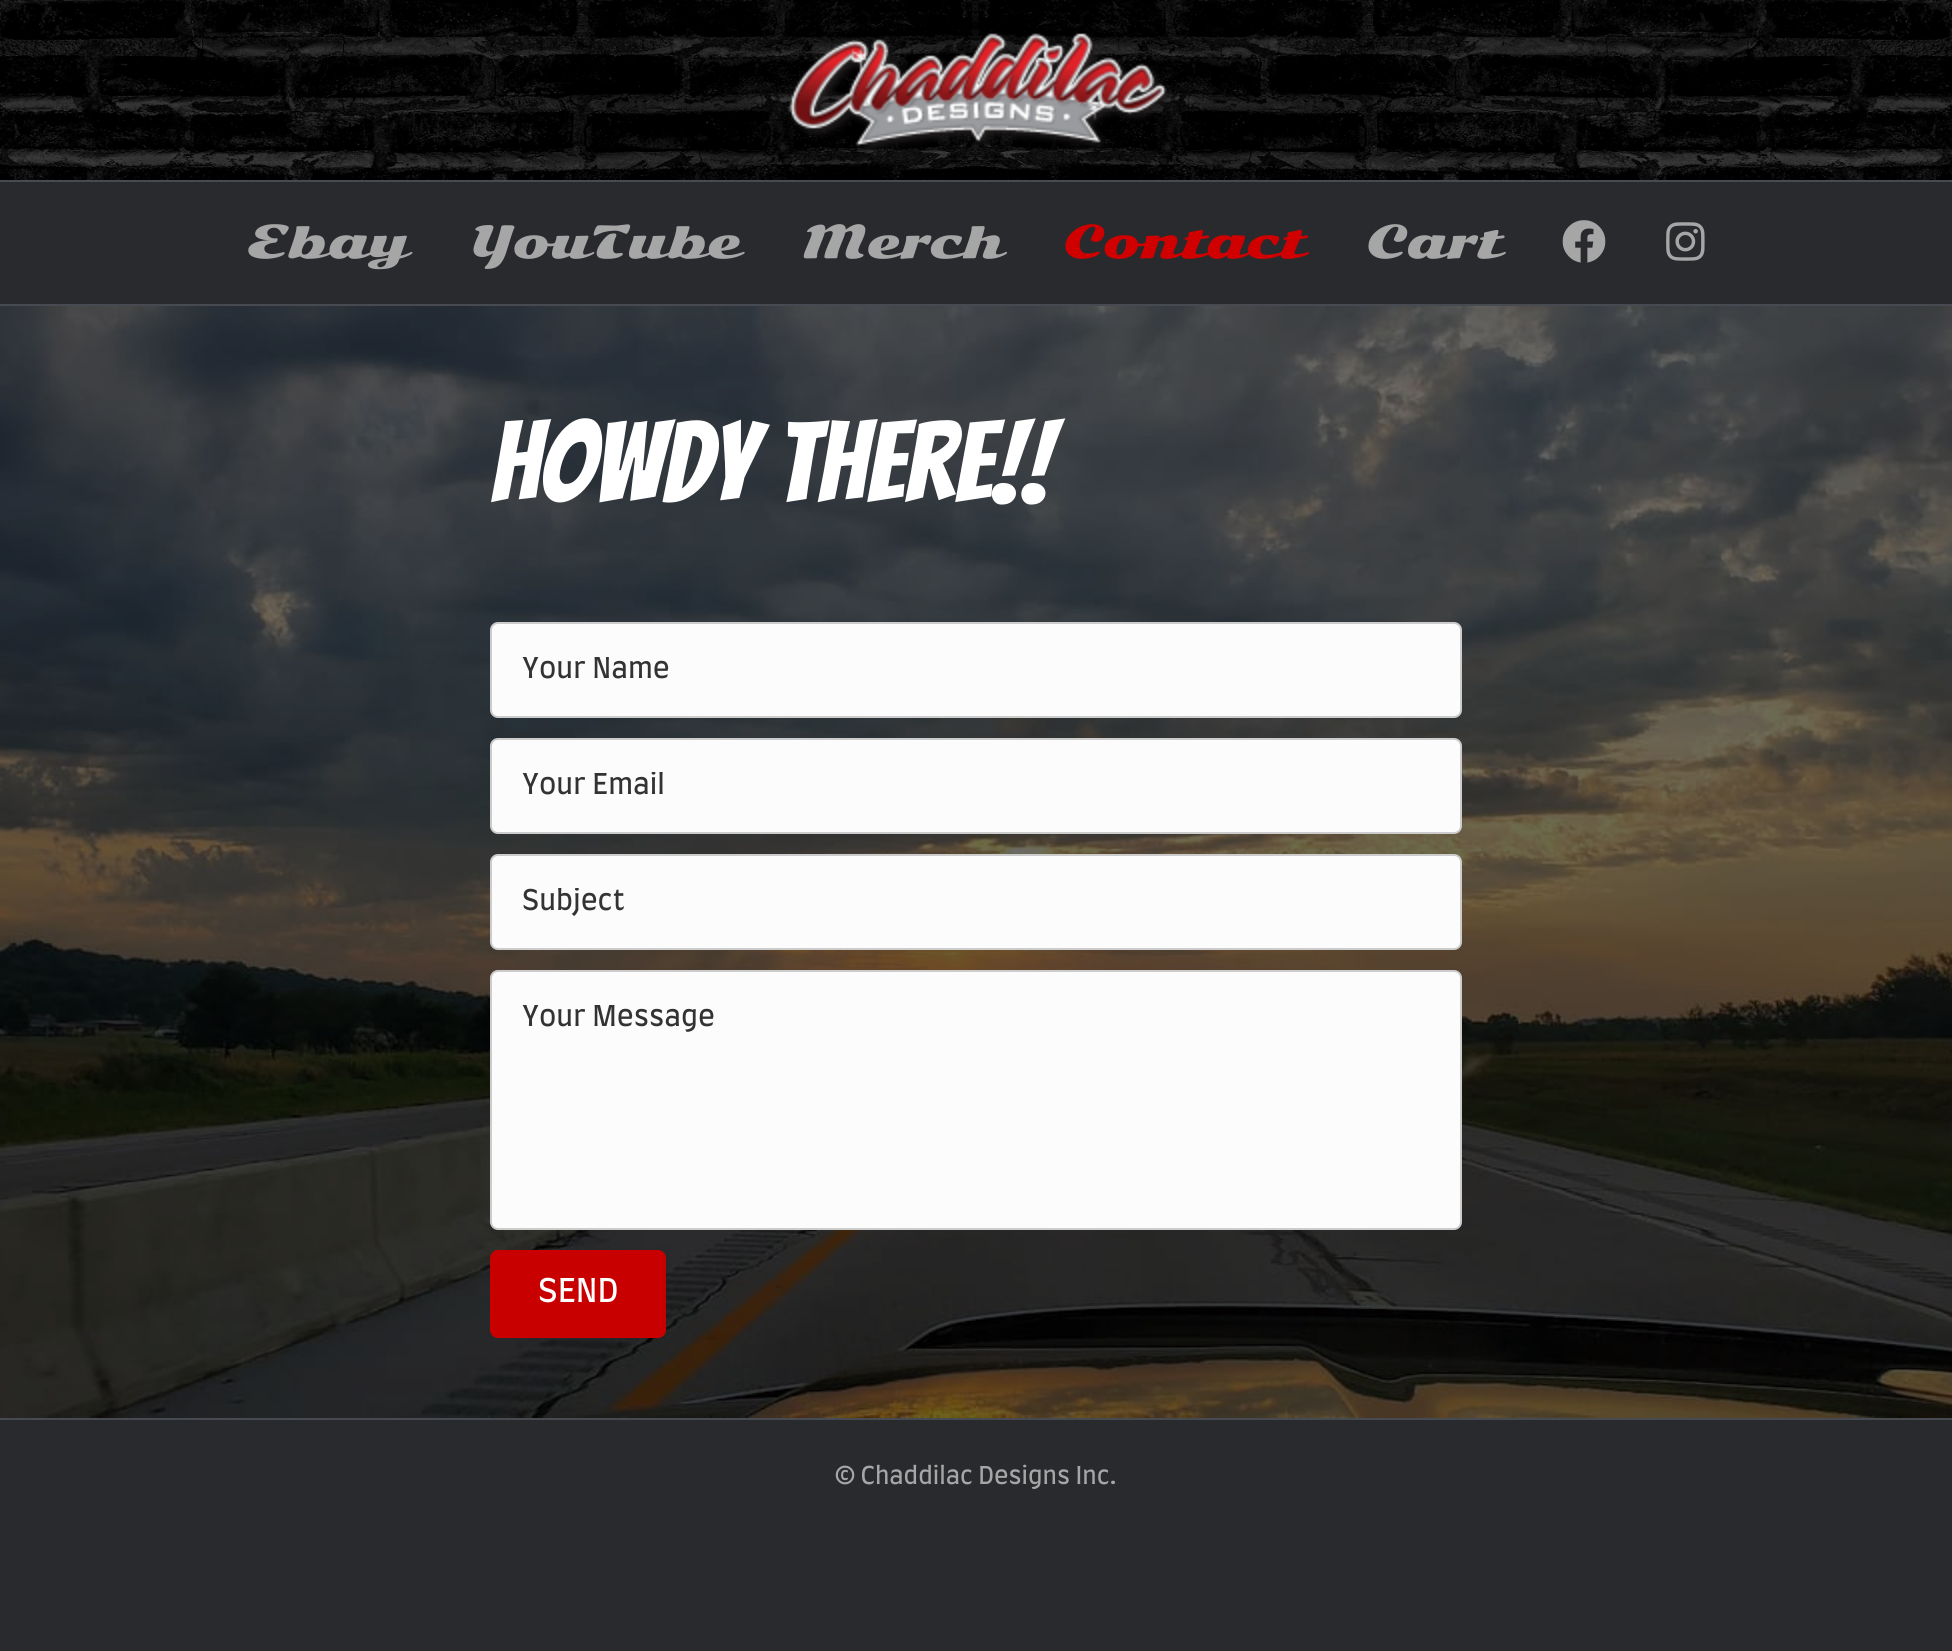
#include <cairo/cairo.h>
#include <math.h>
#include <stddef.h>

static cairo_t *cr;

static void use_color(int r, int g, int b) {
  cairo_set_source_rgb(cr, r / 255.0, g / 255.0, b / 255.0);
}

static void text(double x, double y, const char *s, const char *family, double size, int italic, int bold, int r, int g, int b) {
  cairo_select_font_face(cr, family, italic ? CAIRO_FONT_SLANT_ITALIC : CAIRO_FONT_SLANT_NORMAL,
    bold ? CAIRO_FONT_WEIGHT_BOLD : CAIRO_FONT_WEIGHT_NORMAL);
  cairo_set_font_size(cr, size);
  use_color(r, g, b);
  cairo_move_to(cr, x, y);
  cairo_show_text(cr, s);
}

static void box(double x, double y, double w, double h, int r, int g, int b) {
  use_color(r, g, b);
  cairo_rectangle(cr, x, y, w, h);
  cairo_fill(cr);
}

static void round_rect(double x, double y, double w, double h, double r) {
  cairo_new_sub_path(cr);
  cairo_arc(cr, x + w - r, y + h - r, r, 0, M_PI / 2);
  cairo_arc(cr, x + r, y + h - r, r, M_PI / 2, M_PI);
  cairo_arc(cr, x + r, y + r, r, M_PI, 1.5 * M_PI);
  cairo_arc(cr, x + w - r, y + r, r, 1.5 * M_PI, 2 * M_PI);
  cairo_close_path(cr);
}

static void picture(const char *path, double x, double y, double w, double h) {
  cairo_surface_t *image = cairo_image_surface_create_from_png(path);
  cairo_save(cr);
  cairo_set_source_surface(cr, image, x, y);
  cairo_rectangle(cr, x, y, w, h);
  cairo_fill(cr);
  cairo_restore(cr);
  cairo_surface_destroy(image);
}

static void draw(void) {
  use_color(40, 42, 46);
  cairo_paint(cr);
  picture("img_01.png", 0, 0, 1952, 180);
  picture("img_02.png", 789, 33, 382, 119);
  box(0, 180, 1952, 2, 71, 74, 81);
  box(0, 304, 1952, 2, 71, 74, 81);
  picture("img_03.png", 1562, 220, 44, 43);
  picture("img_04.png", 1666, 222, 39, 39);
  picture("img_05.png", 0, 306, 1952, 1112);
  use_color(252, 252, 252);
  round_rect(491, 623, 970, 94, 7);
  cairo_fill_preserve(cr);
  use_color(204, 204, 204);
  cairo_stroke(cr);
  use_color(252, 252, 252);
  round_rect(491, 739, 970, 94, 7);
  cairo_fill_preserve(cr);
  use_color(204, 204, 204);
  cairo_stroke(cr);
  use_color(252, 252, 252);
  round_rect(491, 855, 970, 94, 7);
  cairo_fill_preserve(cr);
  use_color(204, 204, 204);
  cairo_stroke(cr);
  use_color(252, 252, 252);
  round_rect(491, 971, 970, 258, 7);
  cairo_fill_preserve(cr);
  use_color(204, 204, 204);
  cairo_stroke(cr);
  use_color(201, 0, 0);
  round_rect(490, 1250, 176, 88, 8);
  cairo_fill(cr);
  box(0, 1418, 1952, 2, 71, 74, 81);
  text(247, 258, "Ebay", "Sonsie One", 44, 0, 0, 166, 166, 166);
  text(469, 258, "YouTube", "Sonsie One", 44, 0, 0, 166, 166, 166);
  text(801, 258, "Merch", "Sonsie One", 44, 0, 0, 166, 166, 166);
  text(1063, 258, "Contact", "Sonsie One", 44, 0, 0, 209, 0, 0);
  text(1366, 258, "Cart", "Sonsie One", 44, 0, 0, 166, 166, 166);
  text(490, 502, "Howdy There!!", "Bangers", 112, 0, 0, 255, 255, 255);
  text(522, 678, "Your Name", "Farro", 28, 0, 0, 51, 51, 51);
  cairo_save(cr);
  cairo_rectangle(cr, 522, 772, 908, 28);
  cairo_clip(cr);
  text(522, 794, "Your Email", "Farro", 28, 0, 0, 51, 51, 51);
  cairo_restore(cr);
  cairo_save(cr);
  cairo_rectangle(cr, 522, 888, 908, 28);
  cairo_clip(cr);
  text(522, 910, "Subject", "Farro", 28, 0, 0, 51, 51, 51);
  cairo_restore(cr);
  text(522, 1026, "Your Message", "Farro", 28, 0, 0, 51, 51, 51);
  text(538, 1302, "SEND", "Farro", 32, 0, 0, 255, 255, 255);
  text(835, 1484, "© Chaddilac Designs Inc.", "Farro", 24, 0, 0, 166, 166, 166);
}

int main(void) {
  cairo_surface_t *surface = cairo_image_surface_create(CAIRO_FORMAT_RGB24, 1952, 1651);
  cr = cairo_create(surface);
  cairo_font_options_t *options = cairo_font_options_create();
  cairo_font_options_set_hint_metrics(options, CAIRO_HINT_METRICS_OFF);
  cairo_font_options_set_hint_style(options, CAIRO_HINT_STYLE_NONE);
  cairo_set_font_options(cr, options);
  cairo_set_miter_limit(cr, 4);
  draw();
  cairo_surface_write_to_png(surface, "out.png");
  cairo_font_options_destroy(options);
  cairo_destroy(cr);
  cairo_surface_destroy(surface);
  return 0;
}
